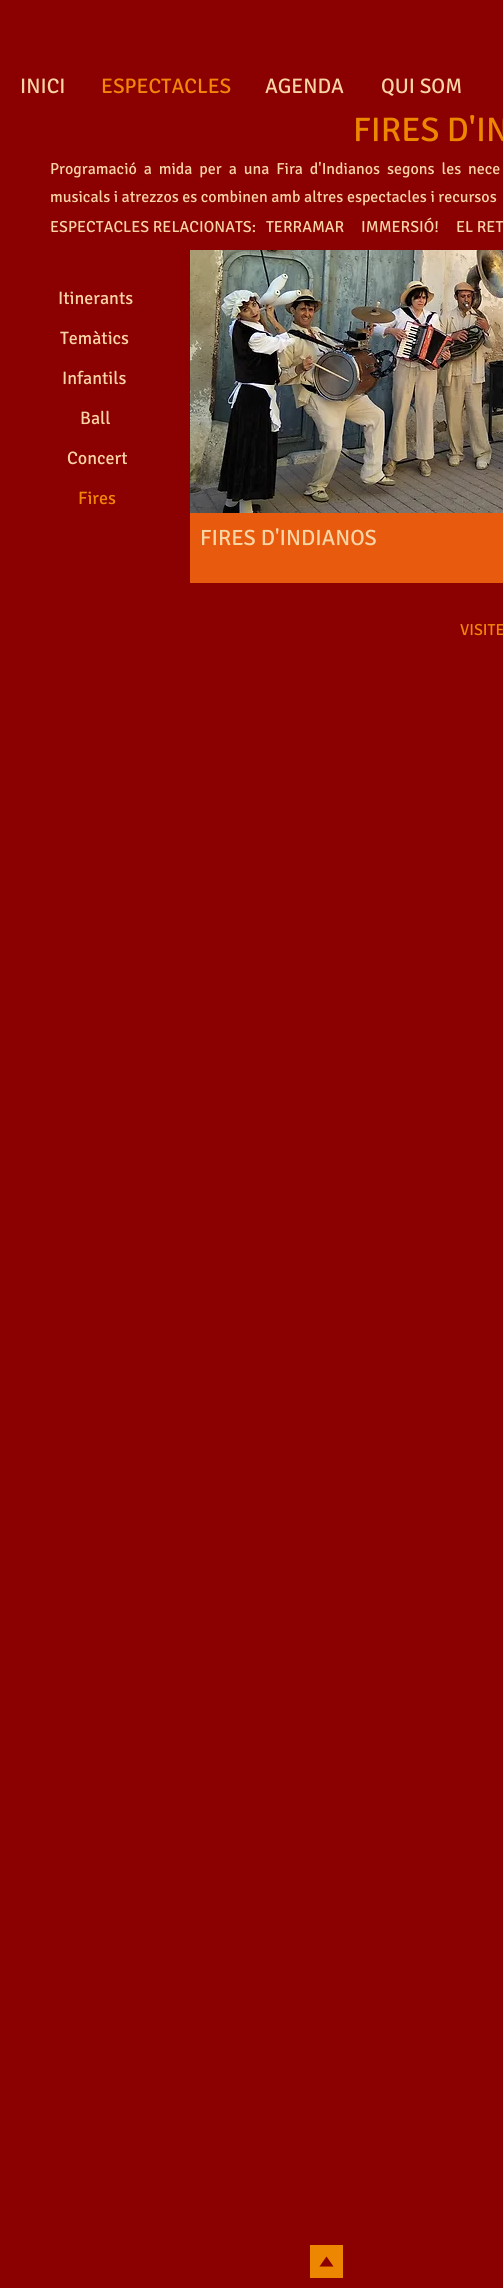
#include <cairo/cairo.h>
#include <math.h>
#include <stddef.h>

static cairo_t *cr;

static void use_color(int r, int g, int b) {
  cairo_set_source_rgb(cr, r / 255.0, g / 255.0, b / 255.0);
}

static void text(double x, double y, const char *s, const char *family, double size, int italic, int bold, int r, int g, int b) {
  cairo_select_font_face(cr, family, italic ? CAIRO_FONT_SLANT_ITALIC : CAIRO_FONT_SLANT_NORMAL,
    bold ? CAIRO_FONT_WEIGHT_BOLD : CAIRO_FONT_WEIGHT_NORMAL);
  cairo_set_font_size(cr, size);
  use_color(r, g, b);
  cairo_move_to(cr, x, y);
  cairo_show_text(cr, s);
}

static void spaced_text(double x, double y, const char *s, double letter, double word) {
  cairo_move_to(cr, x, y);
  while (*s) {
    char ch[5] = {0};
    int n = 0;
    do ch[n++] = *s++; while ((*s & 0xC0) == 0x80);
    cairo_show_text(cr, ch);
    cairo_rel_move_to(cr, letter + word * (*ch == ' '), 0);
  }
}

static void box(double x, double y, double w, double h, int r, int g, int b) {
  use_color(r, g, b);
  cairo_rectangle(cr, x, y, w, h);
  cairo_fill(cr);
}

static void picture(const char *path, double x, double y, double w, double h) {
  cairo_surface_t *image = cairo_image_surface_create_from_png(path);
  cairo_save(cr);
  cairo_set_source_surface(cr, image, x, y);
  cairo_rectangle(cr, x, y, w, h);
  cairo_fill(cr);
  cairo_restore(cr);
  cairo_surface_destroy(image);
}

static void draw(void) {
  use_color(139, 0, 0);
  cairo_paint(cr);
  box(190, 513, 313, 70, 232, 90, 13);
  picture("img_01.png", 190, 250, 313, 263);
  use_color(237, 134, 0);
  cairo_new_path(cr);
  cairo_move_to(cr, 310, 2245);
  cairo_line_to(cr, 310, 2278);
  cairo_line_to(cr, 343, 2278);
  cairo_line_to(cr, 343, 2245);
  cairo_close_path(cr);
  cairo_move_to(cr, 319.5, 2266.5);
  cairo_line_to(cr, 326.5, 2256.5);
  cairo_line_to(cr, 333.5, 2266.5);
  cairo_close_path(cr);
  cairo_fill(cr);
  text(20, 93, "INICI", "Signika", 21, 0, 0, 249, 213, 166);
  text(101, 93, "ESPECTACLES", "Signika", 21, 0, 0, 242, 134, 10);
  text(265, 93, "AGENDA", "Signika", 21, 0, 0, 249, 213, 166);
  text(381, 93, "QUI SOM", "Signika", 21, 0, 0, 249, 213, 166);
  text(353, 141, "FIRES D'IN", "Signika", 34, 0, 0, 237, 134, 0);
  cairo_set_font_size(cr, 16);
  use_color(249, 213, 166);
  spaced_text(50, 174, "Programació a mida per a una Fira d'Indianos segons les nece", 0, 3.4);
  text(50, 202, "musicals i atrezzos es combinen amb altres espectacles i recursos", "Signika", 16, 0, 0, 249, 213, 166);
  text(50, 232, "ESPECTACLES RELACIONATS:", "Signika", 16, 0, 0, 249, 213, 166);
  text(266, 232, "TERRAMAR", "Signika", 16, 0, 0, 249, 213, 166);
  text(361, 232, "IMMERSIÓ!", "Signika", 16, 0, 0, 249, 213, 166);
  text(456, 232, "EL RET", "Signika", 16, 0, 0, 249, 213, 166);
  text(58, 304, "Itinerants", "Signika", 18, 0, 0, 249, 213, 166);
  text(60, 344, "Temàtics", "Signika", 18, 0, 0, 249, 213, 166);
  text(62, 384, "Infantils", "Signika", 18, 0, 0, 249, 213, 166);
  text(80, 424, "Ball", "Signika", 18, 0, 0, 249, 213, 166);
  text(67, 464, "Concert", "Signika", 18, 0, 0, 249, 213, 166);
  text(78, 504, "Fires", "Signika", 18, 0, 0, 242, 134, 10);
  text(200, 545, "FIRES D'INDIANOS", "Signika", 22, 0, 0, 249, 213, 166);
  text(460, 635, "VISITE", "Signika", 16, 0, 0, 242, 134, 10);
}

int main(void) {
  cairo_surface_t *surface = cairo_image_surface_create(CAIRO_FORMAT_RGB24, 503, 2288);
  cr = cairo_create(surface);
  cairo_font_options_t *options = cairo_font_options_create();
  cairo_font_options_set_hint_metrics(options, CAIRO_HINT_METRICS_OFF);
  cairo_font_options_set_hint_style(options, CAIRO_HINT_STYLE_NONE);
  cairo_set_font_options(cr, options);
  cairo_set_miter_limit(cr, 4);
  draw();
  cairo_surface_write_to_png(surface, "out.png");
  cairo_font_options_destroy(options);
  cairo_destroy(cr);
  cairo_surface_destroy(surface);
  return 0;
}
